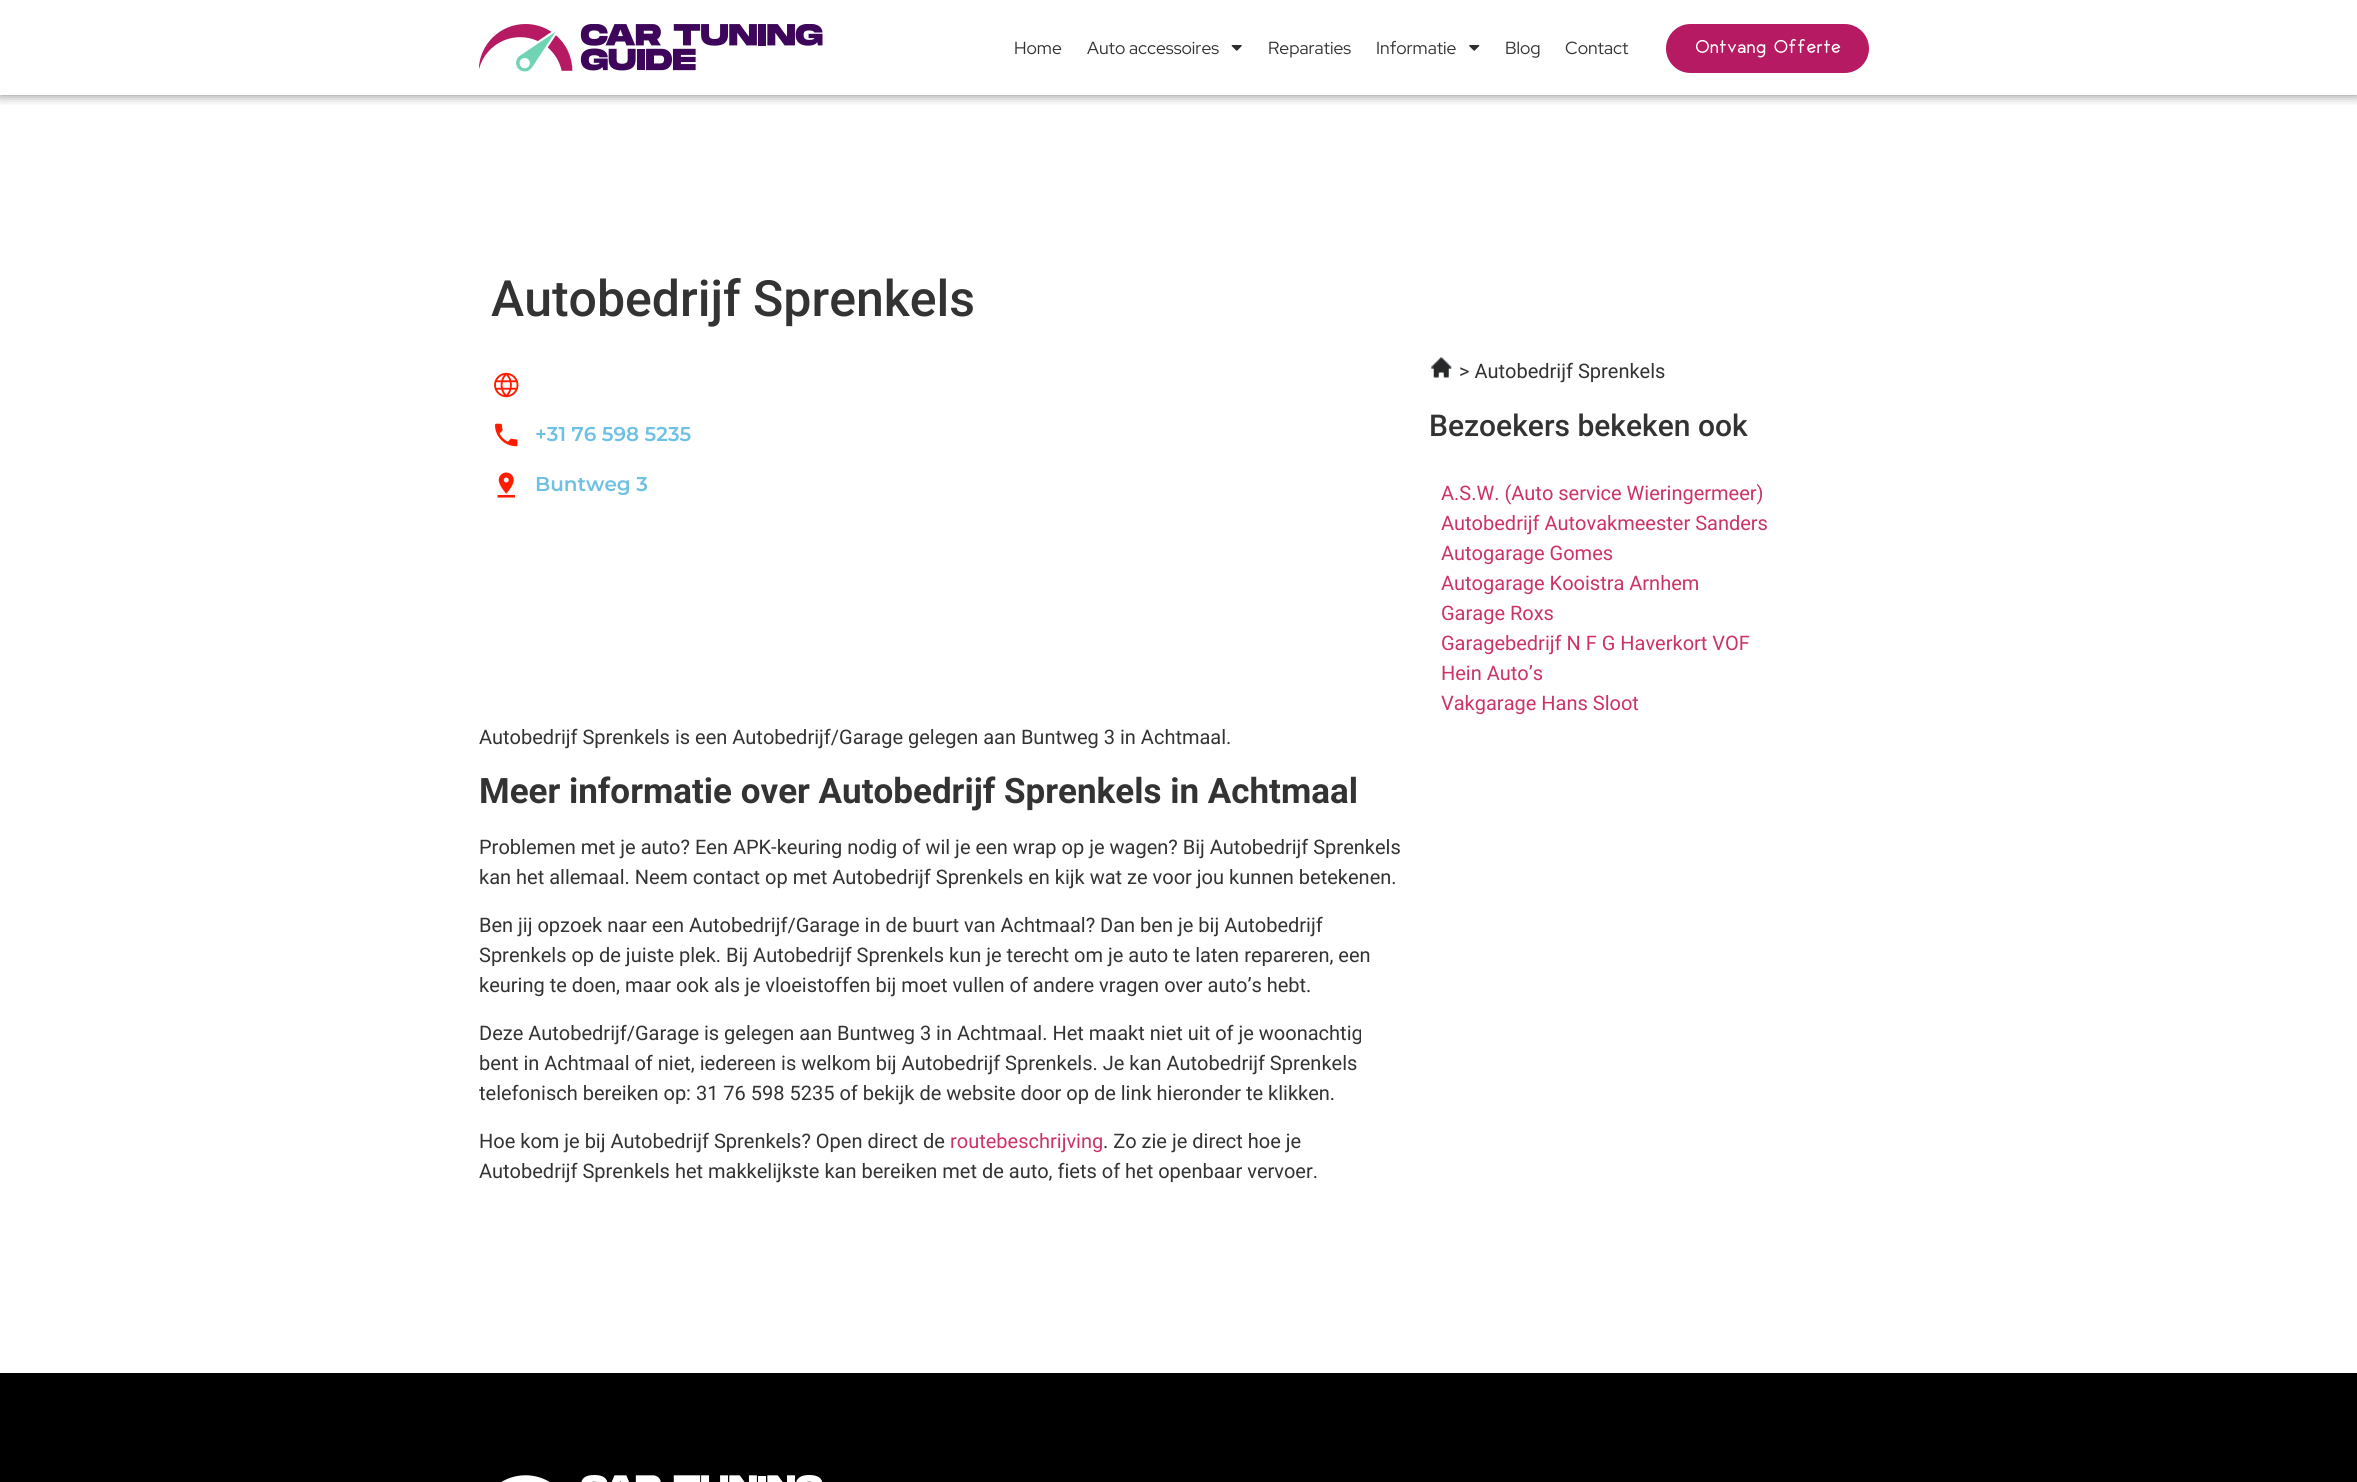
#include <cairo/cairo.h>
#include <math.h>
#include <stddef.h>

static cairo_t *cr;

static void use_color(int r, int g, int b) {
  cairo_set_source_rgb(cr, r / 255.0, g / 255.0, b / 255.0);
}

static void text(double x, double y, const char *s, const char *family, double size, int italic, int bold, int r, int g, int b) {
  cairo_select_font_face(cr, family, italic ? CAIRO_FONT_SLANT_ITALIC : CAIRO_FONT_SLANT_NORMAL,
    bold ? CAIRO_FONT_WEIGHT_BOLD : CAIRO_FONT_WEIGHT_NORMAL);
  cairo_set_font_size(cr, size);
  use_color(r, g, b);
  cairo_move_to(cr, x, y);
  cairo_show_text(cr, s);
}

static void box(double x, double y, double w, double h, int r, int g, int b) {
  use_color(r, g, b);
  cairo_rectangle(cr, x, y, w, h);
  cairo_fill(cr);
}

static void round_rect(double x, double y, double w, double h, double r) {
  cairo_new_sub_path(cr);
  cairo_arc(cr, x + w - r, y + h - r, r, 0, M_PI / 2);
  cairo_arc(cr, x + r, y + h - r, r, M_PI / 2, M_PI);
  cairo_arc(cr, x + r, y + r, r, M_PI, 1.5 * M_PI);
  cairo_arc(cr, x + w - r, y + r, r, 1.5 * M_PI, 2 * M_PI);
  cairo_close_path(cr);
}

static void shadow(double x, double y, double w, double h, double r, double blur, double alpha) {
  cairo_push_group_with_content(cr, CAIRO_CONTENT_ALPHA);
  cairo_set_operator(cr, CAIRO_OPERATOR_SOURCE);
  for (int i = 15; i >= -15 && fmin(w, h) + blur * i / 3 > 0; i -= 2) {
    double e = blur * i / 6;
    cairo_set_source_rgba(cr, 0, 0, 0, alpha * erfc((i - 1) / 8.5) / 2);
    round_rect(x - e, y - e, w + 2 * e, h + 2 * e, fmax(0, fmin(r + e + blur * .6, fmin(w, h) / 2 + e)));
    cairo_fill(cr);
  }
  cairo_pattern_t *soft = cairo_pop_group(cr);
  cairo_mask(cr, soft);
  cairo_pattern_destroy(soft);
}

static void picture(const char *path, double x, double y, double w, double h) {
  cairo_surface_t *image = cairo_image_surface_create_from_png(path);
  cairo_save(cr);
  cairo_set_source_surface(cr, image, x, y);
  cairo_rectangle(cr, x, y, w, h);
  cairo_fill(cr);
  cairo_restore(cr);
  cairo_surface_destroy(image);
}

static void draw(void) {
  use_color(255, 255, 255);
  cairo_paint(cr);
  cairo_save(cr);
  cairo_rectangle(cr, 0, 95, 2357, 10);
  cairo_clip(cr);
  use_color(0, 0, 0);
  shadow(0, 0, 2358, 95, 0, 6, 0.5);
  cairo_restore(cr);
  picture("img_01.png", 479, 24, 344, 48);
  picture("img_02.png", 1231, 45, 11, 6);
  picture("img_03.png", 1469, 45, 11, 6);
  use_color(181, 26, 98);
  round_rect(1666, 24, 203, 49, 24.5);
  cairo_fill(cr);
  picture("img_04.png", 494, 372, 25, 26);
  picture("img_05.png", 495, 423, 23, 24);
  picture("img_06.png", 497, 472, 18, 26);
  picture("img_07.png", 1431, 357, 21, 21);
  box(0, 1373, 2357, 109, 0, 0, 0);
  picture("img_08.png", 501, 1475, 322, 7);
  text(1014, 54, "Home", "Red Hat Display", 17.5, 0, 0, 51, 51, 51);
  text(1087, 54, "Auto accessoires", "Red Hat Display", 17.5, 0, 0, 51, 51, 51);
  text(1268, 54, "Reparaties", "Red Hat Display", 17.5, 0, 0, 51, 51, 51);
  text(1376, 54, "Informatie", "Red Hat Display", 17.5, 0, 0, 51, 51, 51);
  text(1505, 54, "Blog", "Red Hat Display", 17.5, 0, 0, 51, 51, 51);
  text(1565, 54, "Contact", "Red Hat Display", 17.5, 0, 0, 51, 51, 51);
  text(1695, 53, "Ontvang Offerte", "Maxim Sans", 18.75, 0, 0, 255, 255, 255);
  text(491, 316, "Autobedrijf Sprenkels", "Roboto Medium", 50, 0, 0, 51, 51, 51);
  text(535, 441, "+31 76 598 5235", "Montserrat SemiBold", 20, 0, 0, 110, 193, 228);
  text(535, 491, "Buntweg 3", "Montserrat SemiBold", 20, 0, 0, 110, 193, 228);
  text(479, 744, "Autobedrijf Sprenkels is een Autobedrijf/Garage gelegen aan Buntweg 3 in Achtmaal.", "Roboto", 20, 0, 0, 51, 51, 51);
  text(479, 803, "Meer informatie over Autobedrijf Sprenkels in Achtmaal", "Roboto", 35, 0, 1, 51, 51, 51);
  text(479, 854, "Problemen met je auto? Een APK-keuring nodig of wil je een wrap op je wagen? Bij Autobedrijf Sprenkels", "Roboto", 20, 0, 0, 51, 51, 51);
  text(479, 884, "kan het allemaal. Neem contact op met Autobedrijf Sprenkels en kijk wat ze voor jou kunnen betekenen.", "Roboto", 20, 0, 0, 51, 51, 51);
  text(479, 932, "Ben jij opzoek naar een Autobedrijf/Garage in de buurt van Achtmaal? Dan ben je bij Autobedrijf", "Roboto", 20, 0, 0, 51, 51, 51);
  text(479, 962, "Sprenkels op de juiste plek. Bij Autobedrijf Sprenkels kun je terecht om je auto te laten repareren, een", "Roboto", 20, 0, 0, 51, 51, 51);
  text(479, 992, "keuring te doen, maar ook als je vloeistoffen bij moet vullen of andere vragen over auto’s hebt.", "Roboto", 20, 0, 0, 51, 51, 51);
  text(479, 1040, "Deze Autobedrijf/Garage is gelegen aan Buntweg 3 in Achtmaal. Het maakt niet uit of je woonachtig", "Roboto", 20, 0, 0, 51, 51, 51);
  text(479, 1070, "bent in Achtmaal of niet, iedereen is welkom bij Autobedrijf Sprenkels. Je kan Autobedrijf Sprenkels", "Roboto", 20, 0, 0, 51, 51, 51);
  text(479, 1100, "telefonisch bereiken op: 31 76 598 5235 of bekijk de website door op de link hieronder te klikken.", "Roboto", 20, 0, 0, 51, 51, 51);
  text(479, 1148, "Hoe kom je bij Autobedrijf Sprenkels? Open direct de", "Roboto", 20, 0, 0, 51, 51, 51);
  text(950, 1148, "routebeschrijving", "Roboto", 20, 0, 0, 204, 51, 102);
  text(1103, 1148, ". Zo zie je direct hoe je", "Roboto", 20, 0, 0, 51, 51, 51);
  text(479, 1178, "Autobedrijf Sprenkels het makkelijkste kan bereiken met de auto, fiets of het openbaar vervoer.", "Roboto", 20, 0, 0, 51, 51, 51);
  text(1459, 378, "> Autobedrijf Sprenkels", "Roboto", 20, 0, 0, 51, 51, 51);
  text(1429, 436, "Bezoekers bekeken ook", "Roboto Medium", 30, 0, 0, 51, 51, 51);
  text(1441, 500, "A.S.W. (Auto service Wieringermeer)", "Roboto", 20, 0, 0, 204, 51, 102);
  text(1441, 530, "Autobedrijf Autovakmeester Sanders", "Roboto", 20, 0, 0, 204, 51, 102);
  text(1441, 560, "Autogarage Gomes", "Roboto", 20, 0, 0, 204, 51, 102);
  text(1441, 590, "Autogarage Kooistra Arnhem", "Roboto", 20, 0, 0, 204, 51, 102);
  text(1441, 620, "Garage Roxs", "Roboto", 20, 0, 0, 204, 51, 102);
  text(1441, 650, "Garagebedrijf N F G Haverkort VOF", "Roboto", 20, 0, 0, 204, 51, 102);
  text(1441, 680, "Hein Auto’s", "Roboto", 20, 0, 0, 204, 51, 102);
  text(1441, 710, "Vakgarage Hans Sloot", "Roboto", 20, 0, 0, 204, 51, 102);
}

int main(void) {
  cairo_surface_t *surface = cairo_image_surface_create(CAIRO_FORMAT_RGB24, 2357, 1482);
  cr = cairo_create(surface);
  cairo_font_options_t *options = cairo_font_options_create();
  cairo_font_options_set_hint_metrics(options, CAIRO_HINT_METRICS_OFF);
  cairo_font_options_set_hint_style(options, CAIRO_HINT_STYLE_NONE);
  cairo_set_font_options(cr, options);
  cairo_set_miter_limit(cr, 4);
  draw();
  cairo_surface_write_to_png(surface, "out.png");
  cairo_font_options_destroy(options);
  cairo_destroy(cr);
  cairo_surface_destroy(surface);
  return 0;
}
